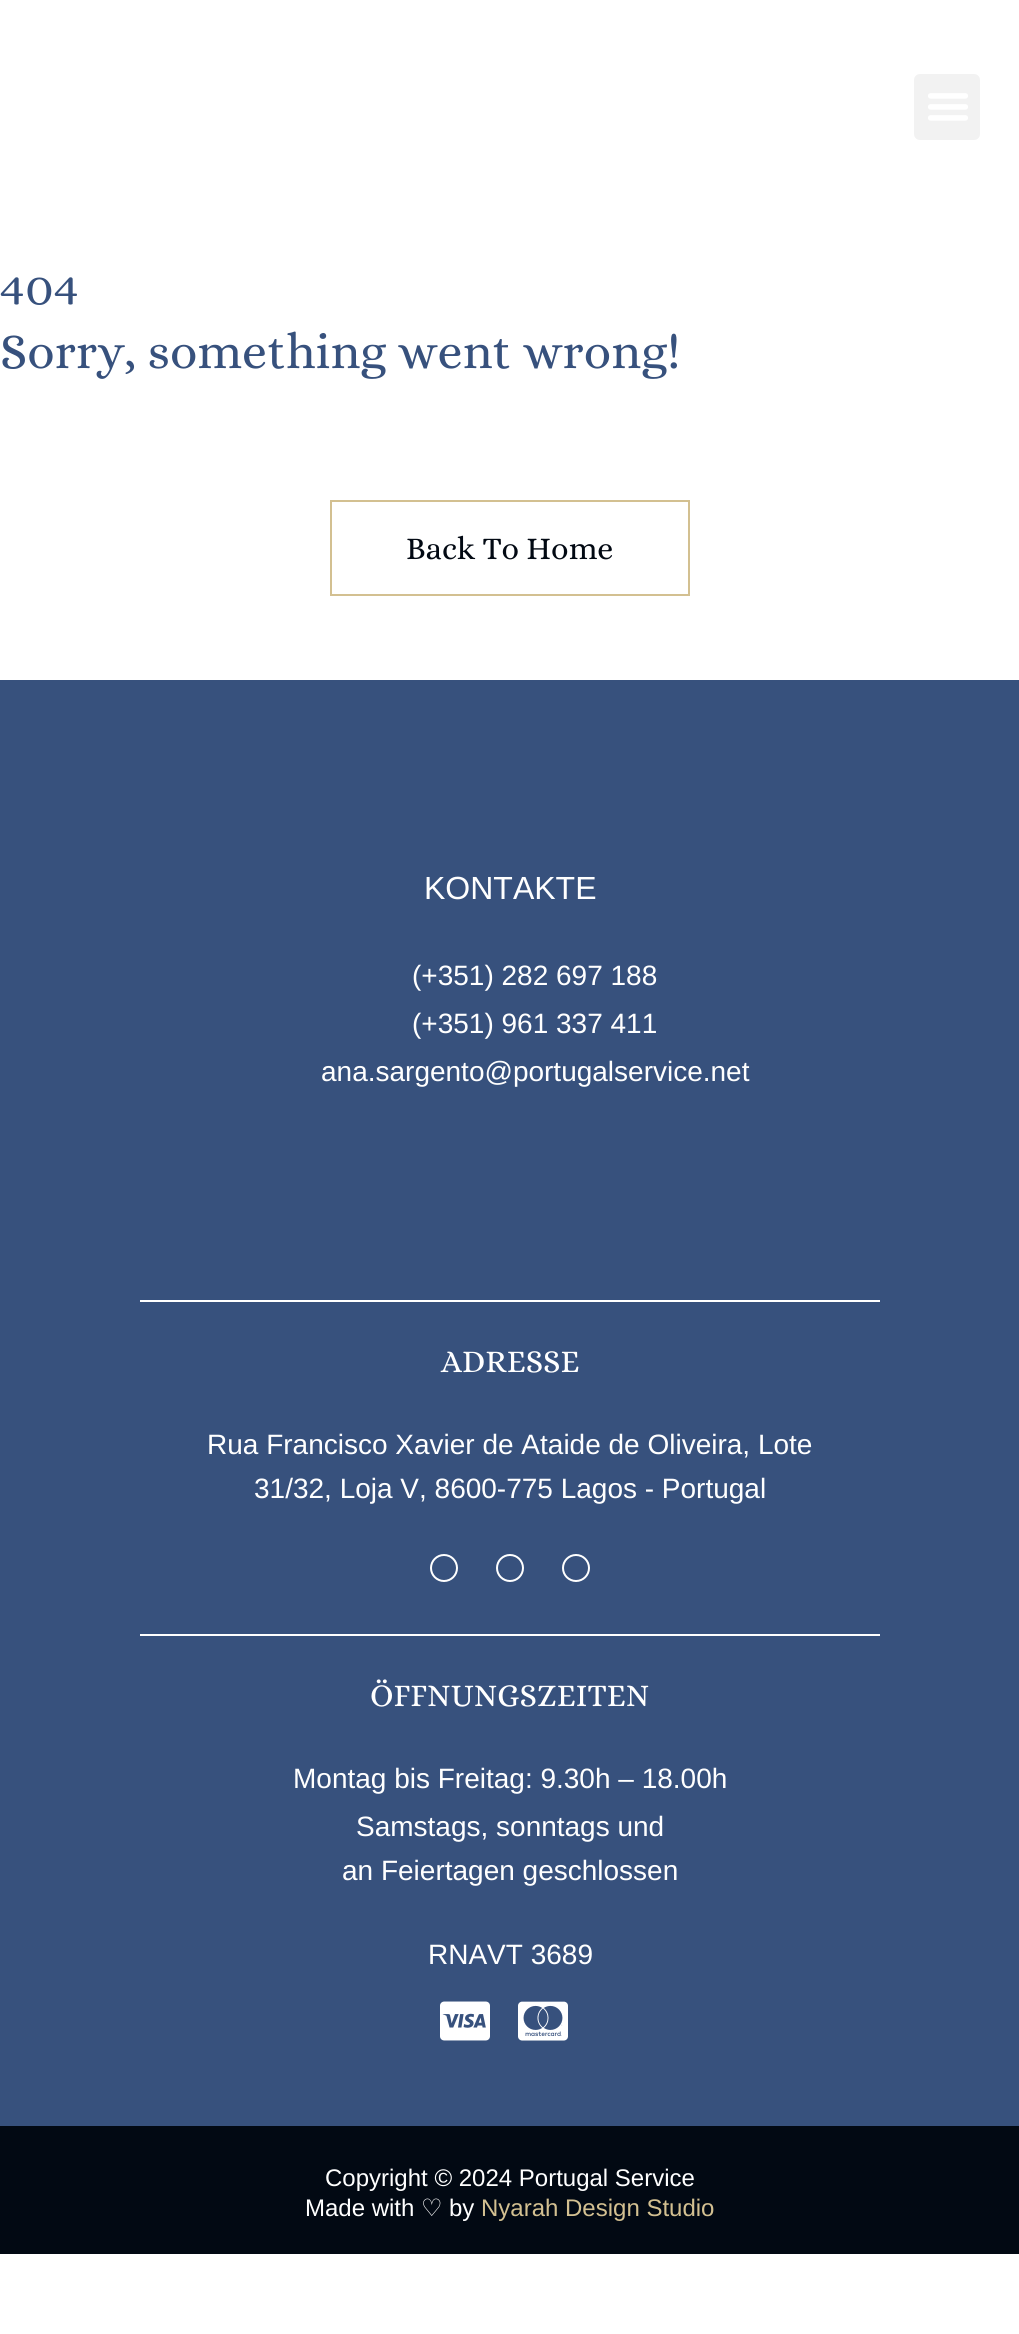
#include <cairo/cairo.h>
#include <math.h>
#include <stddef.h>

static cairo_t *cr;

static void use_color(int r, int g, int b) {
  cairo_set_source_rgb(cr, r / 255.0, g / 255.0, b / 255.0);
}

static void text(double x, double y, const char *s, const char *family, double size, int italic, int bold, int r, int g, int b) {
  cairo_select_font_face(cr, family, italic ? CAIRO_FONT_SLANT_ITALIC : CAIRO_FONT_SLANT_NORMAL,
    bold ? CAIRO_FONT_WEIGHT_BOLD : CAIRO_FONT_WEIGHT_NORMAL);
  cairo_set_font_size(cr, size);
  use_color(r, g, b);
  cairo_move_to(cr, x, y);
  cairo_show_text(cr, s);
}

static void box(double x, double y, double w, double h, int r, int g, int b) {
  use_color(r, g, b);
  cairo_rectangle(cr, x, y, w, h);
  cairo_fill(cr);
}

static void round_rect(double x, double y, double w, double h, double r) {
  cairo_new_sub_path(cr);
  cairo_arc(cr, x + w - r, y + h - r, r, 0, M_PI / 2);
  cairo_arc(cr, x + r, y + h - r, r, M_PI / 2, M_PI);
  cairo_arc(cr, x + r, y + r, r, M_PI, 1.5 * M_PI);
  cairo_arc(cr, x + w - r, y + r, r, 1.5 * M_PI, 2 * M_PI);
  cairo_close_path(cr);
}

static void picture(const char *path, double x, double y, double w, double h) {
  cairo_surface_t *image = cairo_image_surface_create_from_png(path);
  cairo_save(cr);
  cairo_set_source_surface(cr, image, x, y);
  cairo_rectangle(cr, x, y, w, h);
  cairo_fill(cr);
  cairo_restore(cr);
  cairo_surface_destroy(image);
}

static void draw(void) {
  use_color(255, 255, 255);
  cairo_paint(cr);
  use_color(242, 242, 242);
  round_rect(914, 74, 66, 66, 6);
  cairo_fill(cr);
  picture("img_01.png", 928, 93, 40, 28);
  cairo_rectangle(cr, 331, 501, 358, 94);
  use_color(211, 192, 145);
  cairo_stroke(cr);
  box(0, 680, 1019, 1446, 55, 81, 125);
  box(140, 1300, 740, 2, 255, 255, 255);
  box(140, 1634, 740, 2, 255, 255, 255);
  cairo_arc(cr, 444, 1568, 13, 0, 2 * M_PI);
  cairo_stroke(cr);
  cairo_arc(cr, 510, 1568, 13, 0, 2 * M_PI);
  cairo_stroke(cr);
  cairo_arc(cr, 576, 1568, 13, 0, 2 * M_PI);
  cairo_stroke(cr);
  picture("img_02.png", 440, 2001, 50, 40);
  picture("img_03.png", 518, 2001, 50, 40);
  box(0, 2126, 1019, 128, 2, 9, 19);
  text(0, 304, "404", "Alice", 50, 0, 0, 55, 81, 125);
  text(0, 368, "Sorry, something went wrong!", "Alice", 50, 0, 0, 55, 81, 125);
  text(406, 559, "Back To Home", "Alice", 32, 0, 0, 2, 9, 19);
  text(424, 899, "KONTAKTE", "Liberation Sans", 32, 0, 0, 255, 255, 255);
  text(412, 985, "(+351) 282 697 188", "Liberation Sans", 28, 0, 0, 255, 255, 255);
  text(412, 1033, "(+351) 961 337 411", "Liberation Sans", 28, 0, 0, 255, 255, 255);
  text(321, 1081, "ana.sargento@portugalservice.net", "Liberation Sans", 28, 0, 0, 255, 255, 255);
  text(441, 1372, "ADRESSE", "Alice", 32, 0, 0, 255, 255, 255);
  text(207, 1454, "Rua Francisco Xavier de Ataide de Oliveira, Lote", "Liberation Sans", 28, 0, 0, 255, 255, 255);
  text(254, 1498, "31/32, Loja V, 8600-775 Lagos - Portugal", "Liberation Sans", 28, 0, 0, 255, 255, 255);
  text(370, 1706, "ÖFFNUNGSZEITEN", "Alice", 32, 0, 0, 255, 255, 255);
  text(293, 1788, "Montag bis Freitag: 9.30h – 18.00h", "Liberation Sans", 28, 0, 0, 255, 255, 255);
  text(356, 1836, "Samstags, sonntags und", "Liberation Sans", 28, 0, 0, 255, 255, 255);
  text(342, 1880, "an Feiertagen geschlossen", "Liberation Sans", 28, 0, 0, 255, 255, 255);
  text(428, 1964, "RNAVT 3689", "Liberation Sans", 28, 0, 0, 255, 255, 255);
  text(325, 2186, "Copyright © 2024 Portugal Service", "Liberation Sans", 24, 0, 0, 255, 255, 255);
  text(305, 2216, "Made with", "Liberation Sans", 24, 0, 0, 255, 255, 255);
  text(421, 2216, "♡", "DejaVu Sans", 24, 0, 0, 255, 255, 255);
  text(449, 2216, "by", "Liberation Sans", 24, 0, 0, 255, 255, 255);
  text(481, 2216, "Nyarah Design Studio", "Liberation Sans", 24, 0, 0, 211, 192, 145);
}

int main(void) {
  cairo_surface_t *surface = cairo_image_surface_create(CAIRO_FORMAT_RGB24, 1019, 2334);
  cr = cairo_create(surface);
  cairo_font_options_t *options = cairo_font_options_create();
  cairo_font_options_set_hint_metrics(options, CAIRO_HINT_METRICS_OFF);
  cairo_font_options_set_hint_style(options, CAIRO_HINT_STYLE_NONE);
  cairo_set_font_options(cr, options);
  cairo_set_miter_limit(cr, 4);
  draw();
  cairo_surface_write_to_png(surface, "out.png");
  cairo_font_options_destroy(options);
  cairo_destroy(cr);
  cairo_surface_destroy(surface);
  return 0;
}
